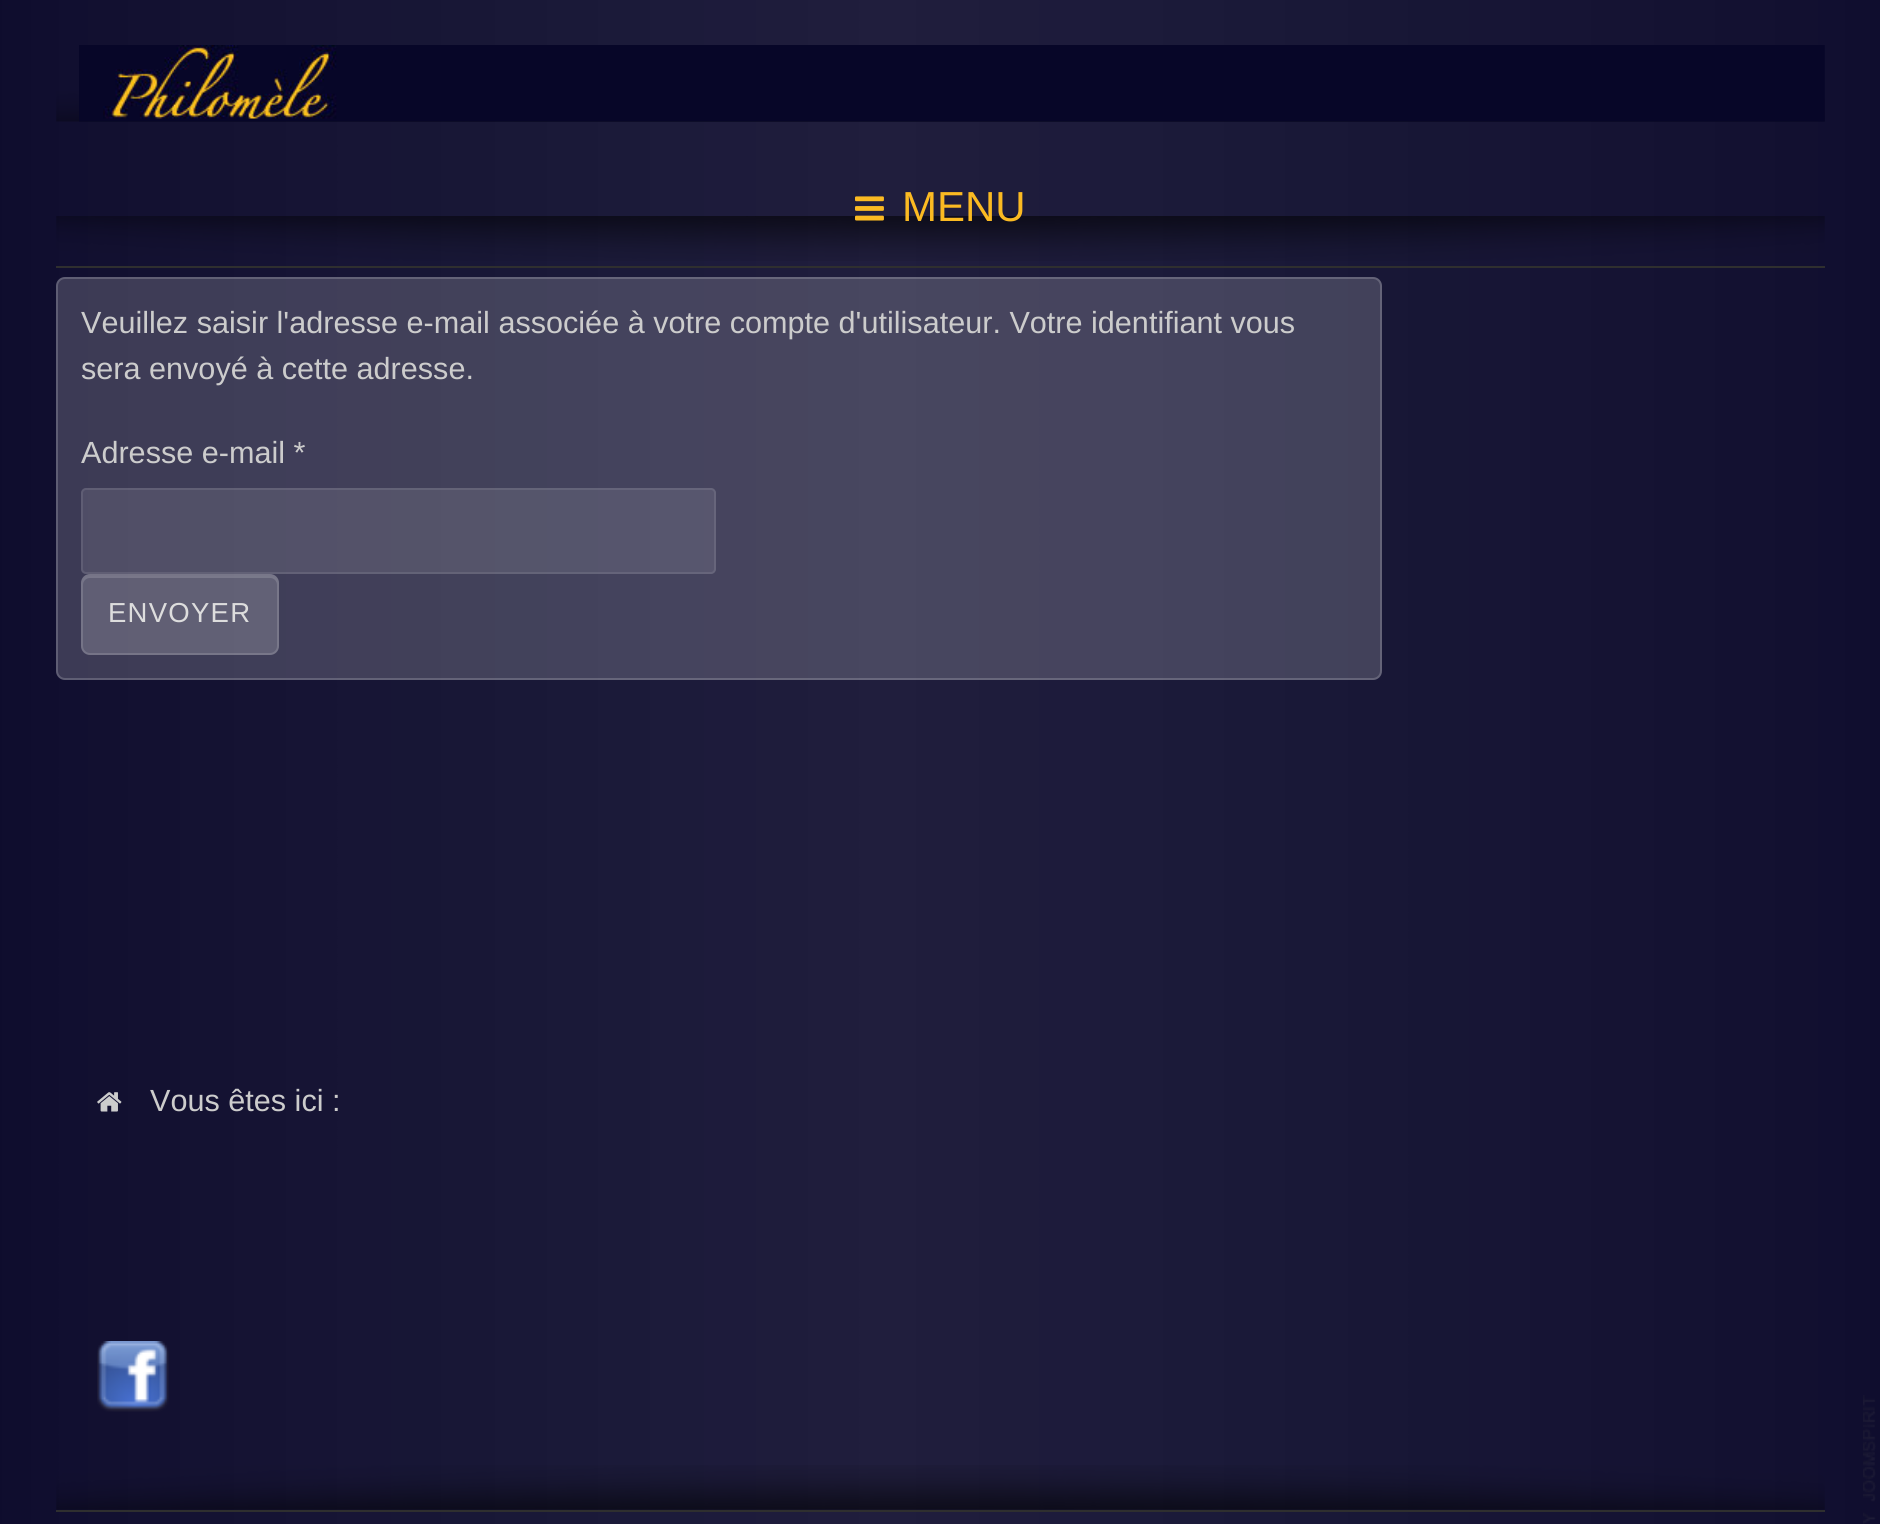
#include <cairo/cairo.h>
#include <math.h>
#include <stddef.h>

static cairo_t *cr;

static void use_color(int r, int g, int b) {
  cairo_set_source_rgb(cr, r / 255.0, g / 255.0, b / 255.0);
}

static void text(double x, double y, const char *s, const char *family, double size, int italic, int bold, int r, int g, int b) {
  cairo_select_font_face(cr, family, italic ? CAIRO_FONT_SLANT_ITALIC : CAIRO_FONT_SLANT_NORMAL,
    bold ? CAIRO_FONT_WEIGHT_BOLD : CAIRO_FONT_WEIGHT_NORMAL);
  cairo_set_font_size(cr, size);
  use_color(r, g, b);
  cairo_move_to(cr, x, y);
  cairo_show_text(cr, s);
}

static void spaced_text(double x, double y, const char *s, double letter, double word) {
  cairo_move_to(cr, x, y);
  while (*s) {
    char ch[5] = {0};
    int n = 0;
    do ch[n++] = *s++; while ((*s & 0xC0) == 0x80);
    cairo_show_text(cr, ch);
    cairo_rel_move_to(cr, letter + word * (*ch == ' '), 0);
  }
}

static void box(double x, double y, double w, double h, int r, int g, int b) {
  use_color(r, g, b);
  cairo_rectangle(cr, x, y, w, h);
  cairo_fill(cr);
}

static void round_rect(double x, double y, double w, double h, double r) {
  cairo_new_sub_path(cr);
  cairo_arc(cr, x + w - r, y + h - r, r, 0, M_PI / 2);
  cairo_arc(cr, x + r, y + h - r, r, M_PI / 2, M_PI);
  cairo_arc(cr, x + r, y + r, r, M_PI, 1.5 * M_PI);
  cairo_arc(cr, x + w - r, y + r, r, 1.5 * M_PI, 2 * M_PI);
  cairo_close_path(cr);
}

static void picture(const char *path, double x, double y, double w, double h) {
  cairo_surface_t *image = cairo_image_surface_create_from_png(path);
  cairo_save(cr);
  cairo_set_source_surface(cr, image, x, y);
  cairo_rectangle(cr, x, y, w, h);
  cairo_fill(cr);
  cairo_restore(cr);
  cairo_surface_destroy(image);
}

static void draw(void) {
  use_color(8, 6, 40);
  cairo_paint(cr);
  picture("img_01.png", 0, 0, 1880, 1524);
  picture("img_02.png", 56, 91, 1769, 31);
  picture("img_03.png", 79, 45, 1746, 77);
  picture("img_04.png", 56, 216, 1769, 45);
  box(56, 266, 1769, 2, 47, 47, 47);
  picture("img_05.png", 855, 196, 29, 25);
  picture("img_06.png", 56, 1465, 1769, 45);
  cairo_set_source_rgba(cr, 1, 1, 1, 0.18);
  round_rect(56, 277, 1326, 403, 9);
  cairo_fill(cr);
  round_rect(57, 278, 1324, 401, 8);
  cairo_stroke(cr);
  cairo_set_source_rgba(cr, 1, 1, 1, 0.1);
  round_rect(81, 488, 635, 86, 5);
  cairo_fill(cr);
  round_rect(82, 489, 633, 84, 4);
  cairo_set_source_rgba(cr, 1, 1, 1, 0.09);
  cairo_stroke(cr);
  cairo_set_source_rgba(cr, 1, 1, 1, 0.18);
  round_rect(81, 574, 198, 81, 9);
  cairo_fill(cr);
  cairo_set_source_rgba(cr, 1, 1, 1, 0.15);
  cairo_new_path(cr);
  cairo_move_to(cr, 90, 578);
  cairo_line_to(cr, 270, 578);
  cairo_curve_to(cr, 274, 578, 277, 581, 277, 585);
  cairo_line_to(cr, 277, 583);
  cairo_curve_to(cr, 277, 579, 274, 576, 270, 576);
  cairo_line_to(cr, 90, 576);
  cairo_curve_to(cr, 86, 576, 83, 579, 83, 583);
  cairo_line_to(cr, 83, 585);
  cairo_curve_to(cr, 83, 581, 86, 578, 90, 578);
  cairo_close_path(cr);
  cairo_fill(cr);
  round_rect(82, 575, 196, 79, 8);
  cairo_set_source_rgba(cr, 1, 1, 1, 0.14);
  cairo_stroke(cr);
  picture("img_07.png", 97, 1092, 25, 20);
  picture("img_08.png", 97, 1341, 72, 71);
  box(56, 1510, 1769, 2, 47, 47, 47);
  picture("img_09.png", 1863, 1395, 13, 129);
  text(902, 221, "MENU", "Liberation Sans", 42, 0, 0, 251, 186, 34);
  text(81, 333, "Veuillez saisir l'adresse e-mail associée à votre compte d'utilisateur. Votre identifiant vous", "Liberation Sans", 30.6, 0, 0, 204, 204, 204);
  text(81, 379, "sera envoyé à cette adresse.", "Liberation Sans", 30.6, 0, 0, 204, 204, 204);
  text(81, 463, "Adresse e-mail *", "Liberation Sans", 30.6, 0, 0, 204, 204, 204);
  cairo_set_font_size(cr, 27.5);
  use_color(221, 221, 221);
  spaced_text(108, 622, "ENVOYER", 1.25, 0);
  text(150, 1111, "Vous êtes ici :", "Liberation Sans", 30.6, 0, 0, 204, 204, 204);
}

int main(void) {
  cairo_surface_t *surface = cairo_image_surface_create(CAIRO_FORMAT_RGB24, 1880, 1524);
  cr = cairo_create(surface);
  cairo_font_options_t *options = cairo_font_options_create();
  cairo_font_options_set_hint_metrics(options, CAIRO_HINT_METRICS_OFF);
  cairo_font_options_set_hint_style(options, CAIRO_HINT_STYLE_NONE);
  cairo_set_font_options(cr, options);
  cairo_set_miter_limit(cr, 4);
  draw();
  cairo_surface_write_to_png(surface, "out.png");
  cairo_font_options_destroy(options);
  cairo_destroy(cr);
  cairo_surface_destroy(surface);
  return 0;
}
